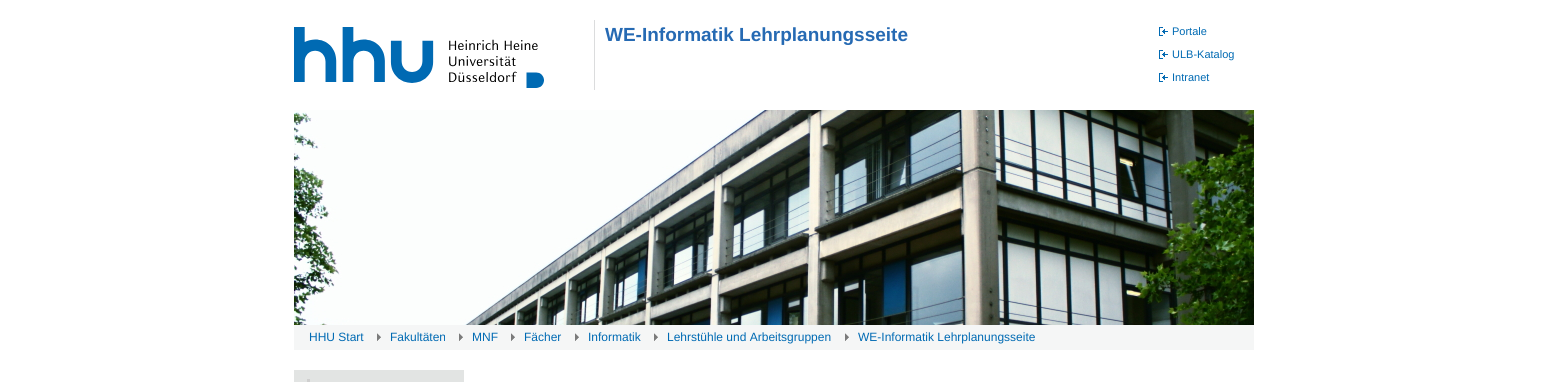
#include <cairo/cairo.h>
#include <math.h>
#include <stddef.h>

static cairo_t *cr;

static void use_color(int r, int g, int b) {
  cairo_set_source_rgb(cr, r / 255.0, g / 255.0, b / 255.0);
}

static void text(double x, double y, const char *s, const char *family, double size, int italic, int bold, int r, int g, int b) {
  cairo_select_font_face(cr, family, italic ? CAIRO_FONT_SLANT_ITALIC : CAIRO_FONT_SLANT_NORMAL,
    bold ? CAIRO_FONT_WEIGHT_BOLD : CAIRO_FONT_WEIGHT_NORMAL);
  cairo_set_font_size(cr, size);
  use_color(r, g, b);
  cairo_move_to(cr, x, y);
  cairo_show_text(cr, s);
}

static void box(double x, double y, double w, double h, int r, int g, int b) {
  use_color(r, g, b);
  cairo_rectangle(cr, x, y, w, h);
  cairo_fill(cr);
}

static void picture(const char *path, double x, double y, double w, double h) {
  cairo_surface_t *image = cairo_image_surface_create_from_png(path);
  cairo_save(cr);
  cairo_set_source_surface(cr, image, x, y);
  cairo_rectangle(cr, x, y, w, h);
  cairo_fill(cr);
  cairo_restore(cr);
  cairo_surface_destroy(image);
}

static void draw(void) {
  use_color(255, 255, 255);
  cairo_paint(cr);
  picture("img_01.png", 294, 27, 250, 61);
  box(594, 20, 1, 70, 219, 220, 221);
  picture("img_02.png", 1159, 27, 9, 9);
  picture("img_02.png", 1159, 50, 9, 9);
  picture("img_02.png", 1159, 73, 9, 9);
  picture("img_03.png", 294, 110, 960, 215);
  box(294, 325, 960, 25, 245, 246, 246);
  picture("img_04.png", 377, 333, 4, 8);
  picture("img_04.png", 459, 333, 4, 8);
  picture("img_04.png", 511, 333, 4, 8);
  picture("img_04.png", 575, 333, 4, 8);
  picture("img_04.png", 654, 333, 4, 8);
  picture("img_04.png", 845, 333, 4, 8);
  box(294, 370, 170, 12, 226, 228, 227);
  box(307, 379, 3, 3, 207, 207, 207);
  text(605, 41, "WE-Informatik Lehrplanungsseite", "Liberation Sans", 19, 0, 1, 38, 106, 179);
  text(1172, 35, "Portale", "Liberation Sans", 11, 0, 0, 0, 106, 179);
  text(1172, 58, "ULB-Katalog", "Liberation Sans", 11, 0, 0, 0, 106, 179);
  text(1172, 81, "Intranet", "Liberation Sans", 11, 0, 0, 0, 106, 179);
  text(309, 341, "HHU Start", "Liberation Sans", 12, 0, 0, 0, 106, 179);
  text(390, 341, "Fakultäten", "Liberation Sans", 12, 0, 0, 0, 106, 179);
  text(472, 341, "MNF", "Liberation Sans", 12, 0, 0, 0, 106, 179);
  text(524, 341, "Fächer", "Liberation Sans", 12, 0, 0, 0, 106, 179);
  text(588, 341, "Informatik", "Liberation Sans", 12, 0, 0, 0, 106, 179);
  text(667, 341, "Lehrstühle und Arbeitsgruppen", "Liberation Sans", 12, 0, 0, 0, 106, 179);
  text(858, 341, "WE-Informatik Lehrplanungsseite", "Liberation Sans", 12, 0, 0, 0, 106, 179);
}

int main(void) {
  cairo_surface_t *surface = cairo_image_surface_create(CAIRO_FORMAT_RGB24, 1548, 382);
  cr = cairo_create(surface);
  cairo_font_options_t *options = cairo_font_options_create();
  cairo_font_options_set_hint_metrics(options, CAIRO_HINT_METRICS_OFF);
  cairo_font_options_set_hint_style(options, CAIRO_HINT_STYLE_NONE);
  cairo_set_font_options(cr, options);
  cairo_set_miter_limit(cr, 4);
  draw();
  cairo_surface_write_to_png(surface, "out.png");
  cairo_font_options_destroy(options);
  cairo_destroy(cr);
  cairo_surface_destroy(surface);
  return 0;
}
